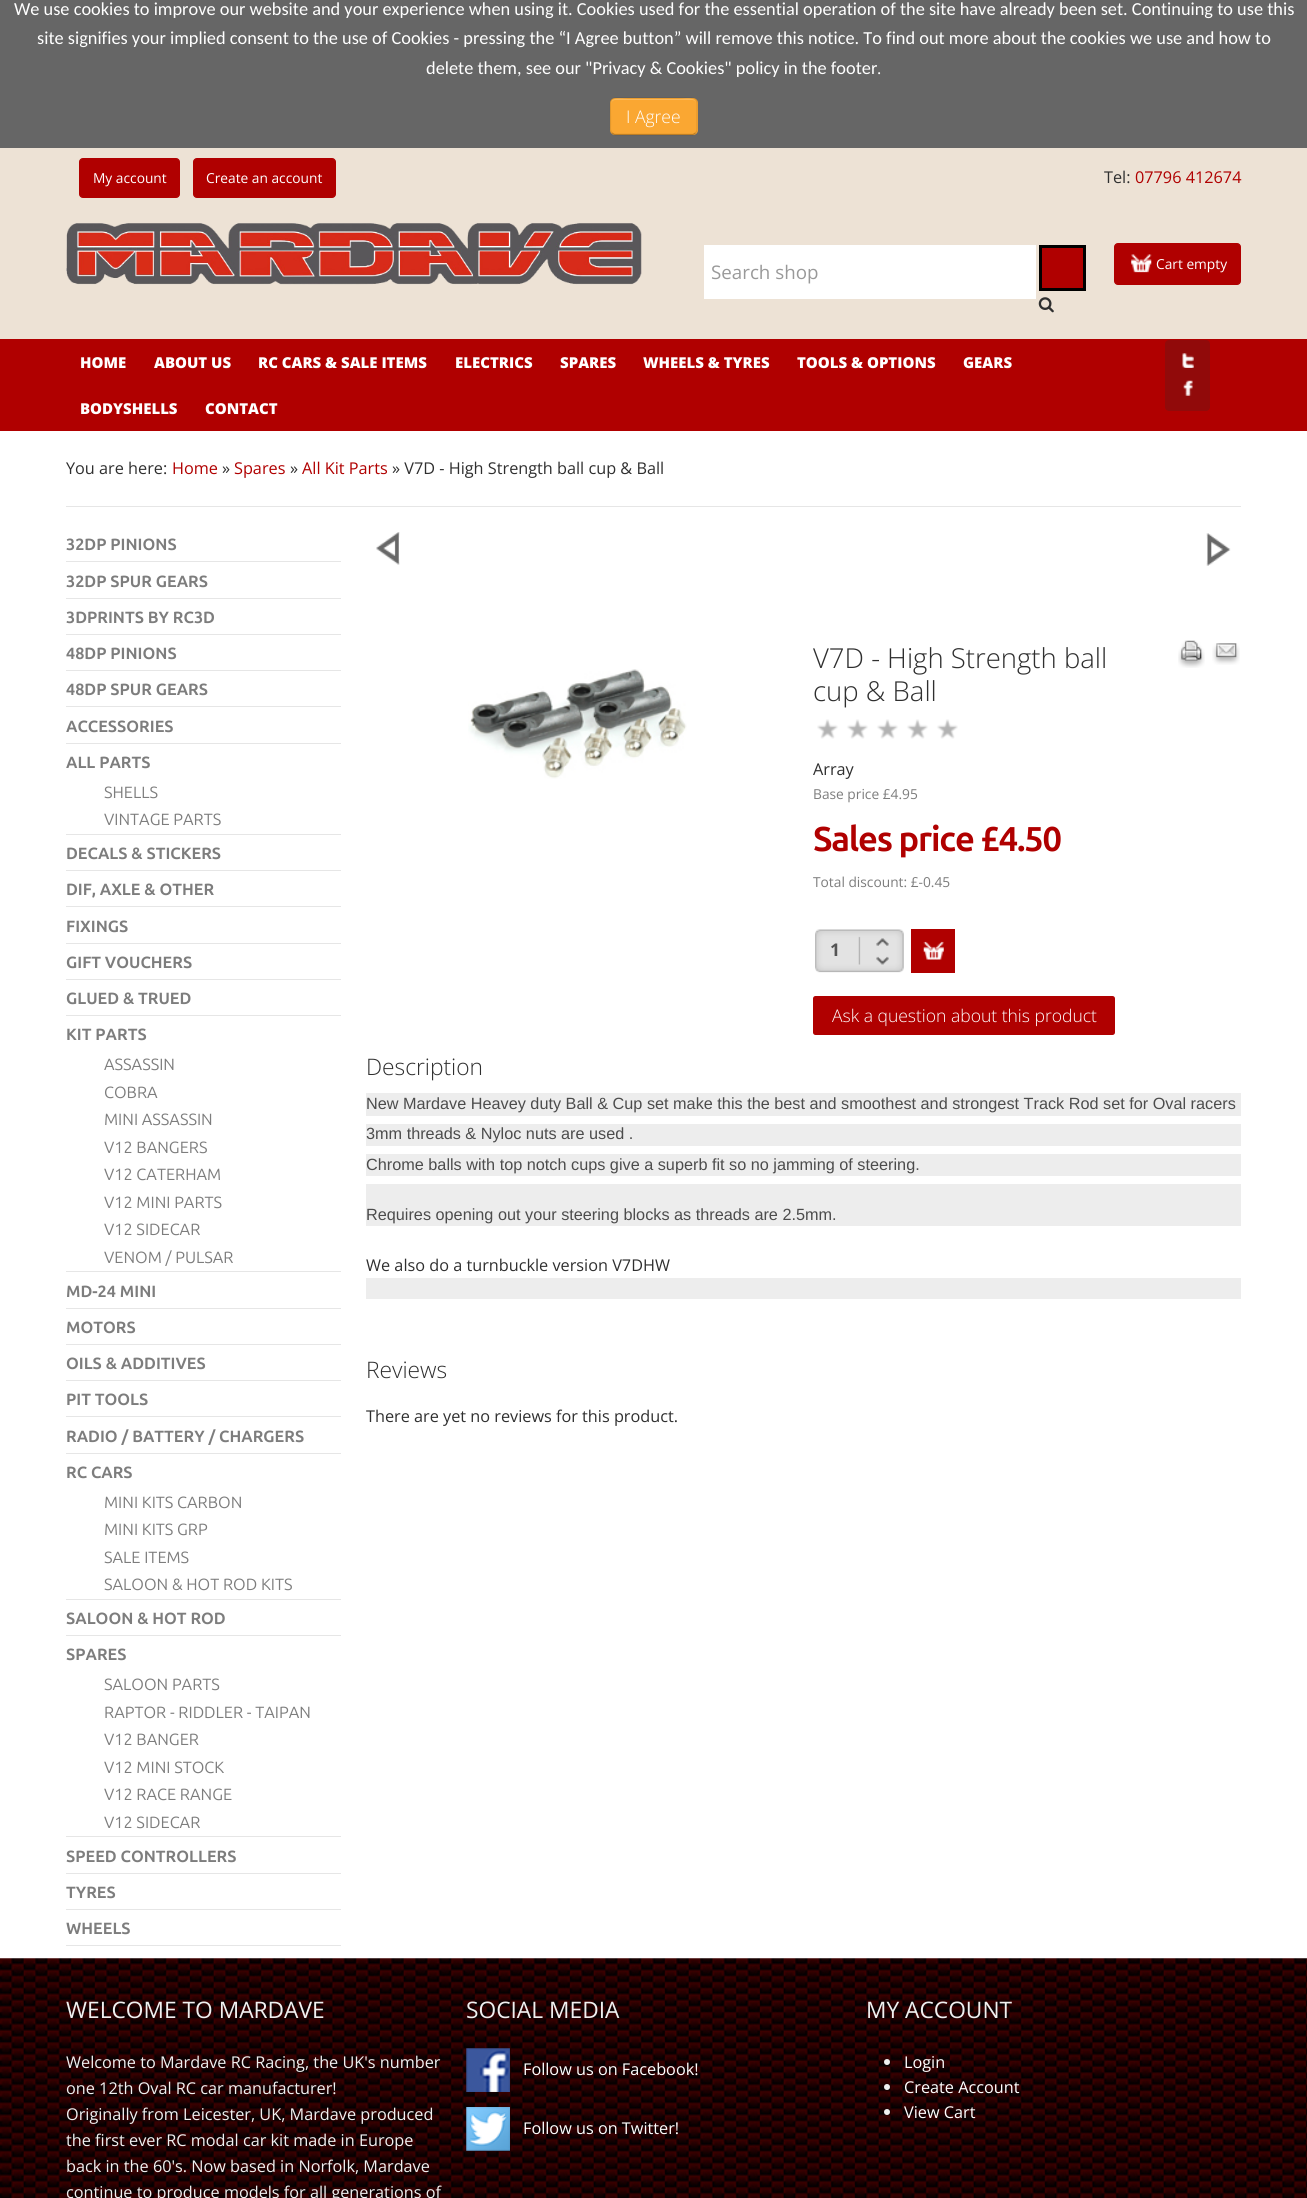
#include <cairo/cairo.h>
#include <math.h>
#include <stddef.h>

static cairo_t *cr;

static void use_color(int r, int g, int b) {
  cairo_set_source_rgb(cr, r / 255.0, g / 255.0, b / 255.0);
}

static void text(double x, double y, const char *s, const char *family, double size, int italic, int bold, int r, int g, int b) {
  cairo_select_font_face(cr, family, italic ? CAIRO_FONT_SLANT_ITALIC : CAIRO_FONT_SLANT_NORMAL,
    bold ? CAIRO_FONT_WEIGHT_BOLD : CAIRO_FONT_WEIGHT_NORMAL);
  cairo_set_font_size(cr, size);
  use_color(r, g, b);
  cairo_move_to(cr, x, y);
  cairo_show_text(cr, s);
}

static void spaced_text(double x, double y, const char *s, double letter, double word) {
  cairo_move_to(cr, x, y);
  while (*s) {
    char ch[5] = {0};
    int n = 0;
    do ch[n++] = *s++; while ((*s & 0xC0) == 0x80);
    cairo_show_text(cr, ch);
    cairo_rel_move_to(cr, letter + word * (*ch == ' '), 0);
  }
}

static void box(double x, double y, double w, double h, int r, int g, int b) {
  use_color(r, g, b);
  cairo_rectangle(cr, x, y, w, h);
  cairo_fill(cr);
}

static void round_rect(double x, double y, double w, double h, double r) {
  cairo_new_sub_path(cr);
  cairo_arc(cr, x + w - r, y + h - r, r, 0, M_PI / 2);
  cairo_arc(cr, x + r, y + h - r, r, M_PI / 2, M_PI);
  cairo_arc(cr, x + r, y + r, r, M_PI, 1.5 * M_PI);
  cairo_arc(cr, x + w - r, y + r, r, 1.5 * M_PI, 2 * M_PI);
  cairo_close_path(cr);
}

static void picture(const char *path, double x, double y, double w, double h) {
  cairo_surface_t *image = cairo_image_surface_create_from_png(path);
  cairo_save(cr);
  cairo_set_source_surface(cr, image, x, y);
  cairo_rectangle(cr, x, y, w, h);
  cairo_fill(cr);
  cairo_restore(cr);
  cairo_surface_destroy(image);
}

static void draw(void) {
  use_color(255, 255, 255);
  cairo_paint(cr);
  box(0, 0, 1307, 148, 102, 102, 102);
  use_color(250, 167, 50);
  round_rect(610, 98, 88, 37, 5);
  cairo_fill(cr);
  use_color(251, 185, 91);
  cairo_new_path(cr);
  cairo_move_to(cr, 615, 100);
  cairo_line_to(cr, 692, 100);
  cairo_curve_to(cr, 695, 100, 696, 102, 696, 104);
  cairo_curve_to(cr, 696, 96, 684, 99, 679, 99);
  cairo_line_to(cr, 628, 99);
  cairo_curve_to(cr, 623, 99, 611, 96, 611, 104);
  cairo_curve_to(cr, 611, 102, 613, 100, 615, 100);
  cairo_close_path(cr);
  cairo_fill(cr);
  cairo_new_path(cr);
  cairo_move_to(cr, 695.5, 133);
  cairo_line_to(cr, 693, 134.5);
  cairo_line_to(cr, 614.5, 134.5);
  cairo_line_to(cr, 612, 133);
  cairo_set_source_rgba(cr, 0, 0, 0, 0.25);
  cairo_set_line_width(cr, 1.2);
  cairo_stroke(cr);
  cairo_new_path(cr);
  cairo_move_to(cr, 612, 133);
  cairo_curve_to(cr, 610, 131, 610.5, 128, 610.5, 125.5);
  cairo_line_to(cr, 610.5, 116);
  cairo_curve_to(cr, 610.5, 96, 607.5, 98, 628, 98);
  cairo_line_to(cr, 679.5, 98);
  cairo_curve_to(cr, 700, 98, 697, 96, 697, 116);
  cairo_line_to(cr, 697, 125.5);
  cairo_curve_to(cr, 697, 128, 697.5, 131, 695.5, 133);
  cairo_set_source_rgba(cr, 0, 0, 0, 0.1);
  cairo_stroke(cr);
  box(0, 148, 1307, 191, 237, 226, 213);
  use_color(176, 0, 0);
  round_rect(79.5, 158.5, 100, 39, 3.5);
  cairo_fill_preserve(cr);
  cairo_set_line_width(cr, 1);
  cairo_stroke(cr);
  round_rect(193.5, 158.5, 142, 39, 3.5);
  cairo_fill_preserve(cr);
  cairo_stroke(cr);
  picture("img_01.png", 66, 223, 576, 62);
  box(704, 245, 332, 54, 255, 255, 255);
  use_color(176, 0, 0);
  cairo_rectangle(cr, 1040.5, 246.5, 44, 43);
  cairo_fill_preserve(cr);
  use_color(0, 0, 0);
  cairo_set_line_width(cr, 3);
  cairo_stroke(cr);
  picture("img_02.png", 1038, 297, 16, 16);
  use_color(176, 0, 0);
  round_rect(1114.5, 243.5, 126, 41, 3.5);
  cairo_fill_preserve(cr);
  cairo_set_line_width(cr, 1);
  cairo_stroke(cr);
  picture("img_03.png", 1131, 254, 21, 19);
  box(0, 339, 1307, 92, 176, 0, 0);
  use_color(145, 10, 10);
  round_rect(1165, 340, 45, 44, 4);
  cairo_fill(cr);
  picture("img_04.png", 1182, 353, 12, 15);
  round_rect(1165, 368, 45, 43, 4);
  cairo_fill(cr);
  picture("img_05.png", 1183, 380, 10, 16);
  box(66, 506, 1175, 1, 230, 230, 230);
  box(66, 561, 275, 1, 230, 230, 230);
  box(66, 598, 275, 1, 230, 230, 230);
  box(66, 634, 275, 1, 230, 230, 230);
  box(66, 670, 275, 1, 230, 230, 230);
  box(66, 706, 275, 1, 230, 230, 230);
  box(66, 743, 275, 1, 230, 230, 230);
  box(66, 834, 275, 1, 230, 230, 230);
  box(66, 870, 275, 1, 230, 230, 230);
  box(66, 906, 275, 1, 230, 230, 230);
  box(66, 943, 275, 1, 230, 230, 230);
  box(66, 979, 275, 1, 230, 230, 230);
  box(66, 1015, 275, 1, 230, 230, 230);
  box(66, 1271, 275, 1, 230, 230, 230);
  box(66, 1308, 275, 1, 230, 230, 230);
  box(66, 1344, 275, 1, 230, 230, 230);
  box(66, 1380, 275, 1, 230, 230, 230);
  box(66, 1416, 275, 1, 230, 230, 230);
  box(66, 1453, 275, 1, 230, 230, 230);
  box(66, 1599, 275, 1, 230, 230, 230);
  box(66, 1635, 275, 1, 230, 230, 230);
  box(66, 1836, 275, 1, 230, 230, 230);
  box(66, 1873, 275, 1, 230, 230, 230);
  box(66, 1909, 275, 1, 230, 230, 230);
  box(66, 1945, 275, 1, 230, 230, 230);
  picture("img_06.png", 376, 532, 24, 33);
  picture("img_07.png", 1206, 533, 25, 33);
  picture("img_08.png", 468, 669, 219, 110);
  picture("img_09.png", 1178, 640, 27, 28);
  picture("img_10.png", 1212, 643, 28, 22);
  picture("img_11.png", 817, 719, 141, 20);
  picture("img_12.png", 815, 929, 89, 44);
  picture("img_13.png", 876, 938, 13, 8);
  picture("img_14.png", 876, 956, 13, 9);
  box(911, 929, 44, 44, 176, 0, 0);
  picture("img_15.png", 923, 941, 21, 19);
  round_rect(813, 996, 302, 39, 2.5);
  cairo_fill(cr);
  box(366, 1093, 875, 23, 237, 237, 237);
  box(366, 1124, 875, 22, 237, 237, 237);
  box(366, 1154, 875, 22, 237, 237, 237);
  box(366, 1184, 875, 42, 237, 237, 237);
  box(366, 1278, 875, 21, 237, 237, 237);
  picture("img_16.png", 0, 1958, 1307, 240);
  picture("img_17.png", 466, 2048, 44, 44);
  picture("img_18.png", 466, 2107, 44, 44);
  use_color(240, 240, 240);
  cairo_arc(cr, 887, 2062, 3, 0, 2 * M_PI);
  cairo_fill(cr);
  cairo_arc(cr, 887, 2087, 3, 0, 2 * M_PI);
  cairo_fill(cr);
  cairo_arc(cr, 887, 2112, 3, 0, 2 * M_PI);
  cairo_fill(cr);
  text(14, 15, "We use cookies to improve our website and your experience when using it. Cookies used for the essential operation of the site have already been set. Continuing to use this", "Carlito", 18.33, 0, 0, 255, 255, 255);
  text(37, 44, "site signifies your implied consent to the use of Cookies - pressing the “I Agree button” will remove this notice. To find out more about the cookies we use and how to", "Carlito", 18.33, 0, 0, 255, 255, 255);
  text(426, 74, "delete them, see our \"Privacy & Cookies\" policy in the footer", "Carlito", 18.33, 0, 0, 255, 255, 255);
  text(877, 74, ".", "Open Sans", 16.25, 0, 0, 255, 255, 255);
  text(626, 123, "I Agree", "Open Sans Light", 17.5, 0, 0, 255, 255, 255);
  text(93, 183, "My account", "Open Sans", 13.75, 0, 0, 255, 255, 255);
  text(206, 183, "Create an account", "Open Sans", 13.75, 0, 0, 255, 255, 255);
  text(1104, 183, "Tel:", "Open Sans", 16.25, 0, 0, 47, 47, 47);
  text(1135, 183, "07796 412674", "Open Sans", 16.25, 0, 0, 176, 0, 0);
  text(711, 279, "Search shop", "Open Sans", 18.75, 0, 0, 153, 153, 153);
  text(1156, 269, "Cart empty", "Open Sans", 13.75, 0, 0, 255, 255, 255);
  text(80, 368, "HOME", "Open Sans ExtraBold", 15, 0, 0, 255, 255, 255);
  text(154, 368, "ABOUT US", "Open Sans ExtraBold", 15, 0, 0, 255, 255, 255);
  text(258, 368, "RC CARS & SALE ITEMS", "Open Sans ExtraBold", 15, 0, 0, 255, 255, 255);
  text(455, 368, "ELECTRICS", "Open Sans ExtraBold", 15, 0, 0, 255, 255, 255);
  text(560, 368, "SPARES", "Open Sans ExtraBold", 15, 0, 0, 255, 255, 255);
  text(643, 368, "WHEELS & TYRES", "Open Sans ExtraBold", 15, 0, 0, 255, 255, 255);
  text(797, 368, "TOOLS & OPTIONS", "Open Sans ExtraBold", 15, 0, 0, 255, 255, 255);
  text(963, 368, "GEARS", "Open Sans ExtraBold", 15, 0, 0, 255, 255, 255);
  text(80, 414, "BODYSHELLS", "Open Sans ExtraBold", 15, 0, 0, 255, 255, 255);
  text(205, 414, "CONTACT", "Open Sans ExtraBold", 15, 0, 0, 255, 255, 255);
  text(66, 474, "You are here:", "Open Sans", 16.25, 0, 0, 47, 47, 47);
  text(172, 474, "Home", "Open Sans", 16.25, 0, 0, 176, 0, 0);
  text(222, 474, "»", "Open Sans", 16.25, 0, 0, 47, 47, 47);
  text(234, 474, "Spares", "Open Sans", 16.25, 0, 0, 176, 0, 0);
  text(290, 474, "»", "Open Sans", 16.25, 0, 0, 47, 47, 47);
  text(302, 474, "All Kit Parts", "Open Sans", 16.25, 0, 0, 176, 0, 0);
  text(392, 474, "» V7D - High Strength ball cup & Ball", "Open Sans", 16.25, 0, 0, 47, 47, 47);
  text(66, 550, "32DP PINIONS", "Ubuntu", 16.25, 0, 1, 125, 125, 125);
  text(66, 587, "32DP SPUR GEARS", "Ubuntu", 16.25, 0, 1, 125, 125, 125);
  text(66, 623, "3DPRINTS BY RC3D", "Ubuntu", 16.25, 0, 1, 125, 125, 125);
  text(66, 659, "48DP PINIONS", "Ubuntu", 16.25, 0, 1, 125, 125, 125);
  text(66, 695, "48DP SPUR GEARS", "Ubuntu", 16.25, 0, 1, 125, 125, 125);
  text(66, 732, "ACCESSORIES", "Ubuntu", 16.25, 0, 1, 125, 125, 125);
  text(66, 768, "ALL PARTS", "Ubuntu", 16.25, 0, 1, 125, 125, 125);
  text(104, 798, "SHELLS", "Ubuntu", 16.25, 0, 0, 125, 125, 125);
  text(104, 825, "VINTAGE PARTS", "Ubuntu", 16.25, 0, 0, 125, 125, 125);
  text(66, 859, "DECALS & STICKERS", "Ubuntu", 16.25, 0, 1, 125, 125, 125);
  text(66, 895, "DIF, AXLE & OTHER", "Ubuntu", 16.25, 0, 1, 125, 125, 125);
  text(66, 932, "FIXINGS", "Ubuntu", 16.25, 0, 1, 125, 125, 125);
  text(66, 968, "GIFT VOUCHERS", "Ubuntu", 16.25, 0, 1, 125, 125, 125);
  text(66, 1004, "GLUED & TRUED", "Ubuntu", 16.25, 0, 1, 125, 125, 125);
  text(66, 1040, "KIT PARTS", "Ubuntu", 16.25, 0, 1, 125, 125, 125);
  text(104, 1070, "ASSASSIN", "Ubuntu", 16.25, 0, 0, 125, 125, 125);
  text(104, 1098, "COBRA", "Ubuntu", 16.25, 0, 0, 125, 125, 125);
  text(104, 1125, "MINI ASSASSIN", "Ubuntu", 16.25, 0, 0, 125, 125, 125);
  text(104, 1153, "V12 BANGERS", "Ubuntu", 16.25, 0, 0, 125, 125, 125);
  text(104, 1180, "V12 CATERHAM", "Ubuntu", 16.25, 0, 0, 125, 125, 125);
  text(104, 1208, "V12 MINI PARTS", "Ubuntu", 16.25, 0, 0, 125, 125, 125);
  text(104, 1235, "V12 SIDECAR", "Ubuntu", 16.25, 0, 0, 125, 125, 125);
  text(104, 1263, "VENOM / PULSAR", "Ubuntu", 16.25, 0, 0, 125, 125, 125);
  text(66, 1297, "MD-24 MINI", "Ubuntu", 16.25, 0, 1, 125, 125, 125);
  text(66, 1333, "MOTORS", "Ubuntu", 16.25, 0, 1, 125, 125, 125);
  text(66, 1369, "OILS & ADDITIVES", "Ubuntu", 16.25, 0, 1, 125, 125, 125);
  text(66, 1405, "PIT TOOLS", "Ubuntu", 16.25, 0, 1, 125, 125, 125);
  text(66, 1442, "RADIO / BATTERY / CHARGERS", "Ubuntu", 16.25, 0, 1, 125, 125, 125);
  text(66, 1478, "RC CARS", "Ubuntu", 16.25, 0, 1, 125, 125, 125);
  text(104, 1508, "MINI KITS CARBON", "Ubuntu", 16.25, 0, 0, 125, 125, 125);
  text(104, 1535, "MINI KITS GRP", "Ubuntu", 16.25, 0, 0, 125, 125, 125);
  text(104, 1563, "SALE ITEMS", "Ubuntu", 16.25, 0, 0, 125, 125, 125);
  text(104, 1590, "SALOON & HOT ROD KITS", "Ubuntu", 16.25, 0, 0, 125, 125, 125);
  text(66, 1624, "SALOON & HOT ROD", "Ubuntu", 16.25, 0, 1, 125, 125, 125);
  text(66, 1660, "SPARES", "Ubuntu", 16.25, 0, 1, 125, 125, 125);
  text(104, 1690, "SALOON PARTS", "Ubuntu", 16.25, 0, 0, 125, 125, 125);
  text(104, 1718, "RAPTOR - RIDDLER - TAIPAN", "Ubuntu", 16.25, 0, 0, 125, 125, 125);
  text(104, 1745, "V12 BANGER", "Ubuntu", 16.25, 0, 0, 125, 125, 125);
  text(104, 1773, "V12 MINI STOCK", "Ubuntu", 16.25, 0, 0, 125, 125, 125);
  text(104, 1800, "V12 RACE RANGE", "Ubuntu", 16.25, 0, 0, 125, 125, 125);
  text(104, 1828, "V12 SIDECAR", "Ubuntu", 16.25, 0, 0, 125, 125, 125);
  text(66, 1862, "SPEED CONTROLLERS", "Ubuntu", 16.25, 0, 1, 125, 125, 125);
  text(66, 1898, "TYRES", "Ubuntu", 16.25, 0, 1, 125, 125, 125);
  text(66, 1934, "WHEELS", "Ubuntu", 16.25, 0, 1, 125, 125, 125);
  text(813, 668, "V7D - High Strength ball", "Open Sans Light", 27.5, 0, 0, 47, 47, 47);
  text(813, 701, "cup & Ball", "Open Sans Light", 27.5, 0, 0, 47, 47, 47);
  text(813, 775, "Array", "Open Sans", 16.25, 0, 0, 47, 47, 47);
  text(813, 799, "Base price £4.95", "Open Sans", 13.75, 0, 0, 125, 125, 125);
  cairo_select_font_face(cr, "Ubuntu", CAIRO_FONT_SLANT_NORMAL, CAIRO_FONT_WEIGHT_BOLD);
  cairo_set_font_size(cr, 34.5);
  use_color(176, 0, 0);
  spaced_text(813, 851, "Sales price £4.50", -1.25, 0);
  text(813, 887, "Total discount: £-0.45", "Open Sans", 13.75, 0, 0, 125, 125, 125);
  text(830, 956, "1", "Open Sans", 17.5, 0, 1, 85, 85, 85);
  text(832, 1022, "Ask a question about this product", "Open Sans Light", 17.5, 0, 0, 255, 255, 255);
  text(366, 1075, "Description", "Open Sans Light", 22.75, 0, 0, 47, 47, 47);
  text(366, 1109, "New Mardave Heavey duty Ball & Cup set make this the best and smoothest and strongest Track Rod set for Oval racers", "Liberation Sans", 16.25, 0, 0, 76, 76, 76);
  text(366, 1139, "3mm threads & Nyloc nuts are used .", "Liberation Sans", 16.25, 0, 0, 76, 76, 76);
  text(366, 1170, "Chrome balls with top notch cups give a superb fit so no jamming of steering.", "Liberation Sans", 16.25, 0, 0, 76, 76, 76);
  text(366, 1220, "Requires opening out your steering blocks as threads are 2.5mm.", "Liberation Sans", 16.25, 0, 0, 76, 76, 76);
  text(366, 1271, "We also do a turnbuckle version V7DHW", "Open Sans", 16.25, 0, 0, 47, 47, 47);
  text(366, 1378, "Reviews", "Open Sans Light", 22.75, 0, 0, 47, 47, 47);
  text(366, 1422, "There are yet no reviews for this product.", "Open Sans", 16.25, 0, 0, 47, 47, 47);
  text(66, 2018, "WELCOME TO MARDAVE", "Open Sans", 22.75, 0, 0, 240, 240, 240);
  text(66, 2068, "Welcome to Mardave RC Racing, the UK's number", "Open Sans", 16.25, 0, 0, 240, 240, 240);
  text(66, 2094, "one 12th Oval RC car manufacturer!", "Open Sans", 16.25, 0, 0, 240, 240, 240);
  text(66, 2120, "Originally from Leicester, UK, Mardave produced", "Open Sans", 16.25, 0, 0, 240, 240, 240);
  text(66, 2146, "the first ever RC modal car kit made in Europe", "Open Sans", 16.25, 0, 0, 240, 240, 240);
  text(66, 2172, "back in the 60's. Now based in Norfolk, Mardave", "Open Sans", 16.25, 0, 0, 240, 240, 240);
  text(66, 2198, "continue to produce models for all generations of", "Open Sans", 16.25, 0, 0, 240, 240, 240);
  text(466, 2018, "SOCIAL MEDIA", "Open Sans", 22.75, 0, 0, 240, 240, 240);
  text(523, 2075, "Follow us on Facebook!", "Open Sans", 16.25, 0, 0, 255, 255, 255);
  text(523, 2134, "Follow us on Twitter!", "Open Sans", 16.25, 0, 0, 255, 255, 255);
  text(866, 2018, "MY ACCOUNT", "Open Sans", 22.75, 0, 0, 240, 240, 240);
  text(904, 2068, "Login", "Open Sans", 16.25, 0, 0, 255, 255, 255);
  text(904, 2093, "Create Account", "Open Sans", 16.25, 0, 0, 255, 255, 255);
  text(904, 2118, "View Cart", "Open Sans", 16.25, 0, 0, 255, 255, 255);
}

int main(void) {
  cairo_surface_t *surface = cairo_image_surface_create(CAIRO_FORMAT_RGB24, 1307, 2198);
  cr = cairo_create(surface);
  cairo_font_options_t *options = cairo_font_options_create();
  cairo_font_options_set_hint_metrics(options, CAIRO_HINT_METRICS_OFF);
  cairo_font_options_set_hint_style(options, CAIRO_HINT_STYLE_NONE);
  cairo_set_font_options(cr, options);
  cairo_set_miter_limit(cr, 4);
  draw();
  cairo_surface_write_to_png(surface, "out.png");
  cairo_font_options_destroy(options);
  cairo_destroy(cr);
  cairo_surface_destroy(surface);
  return 0;
}
